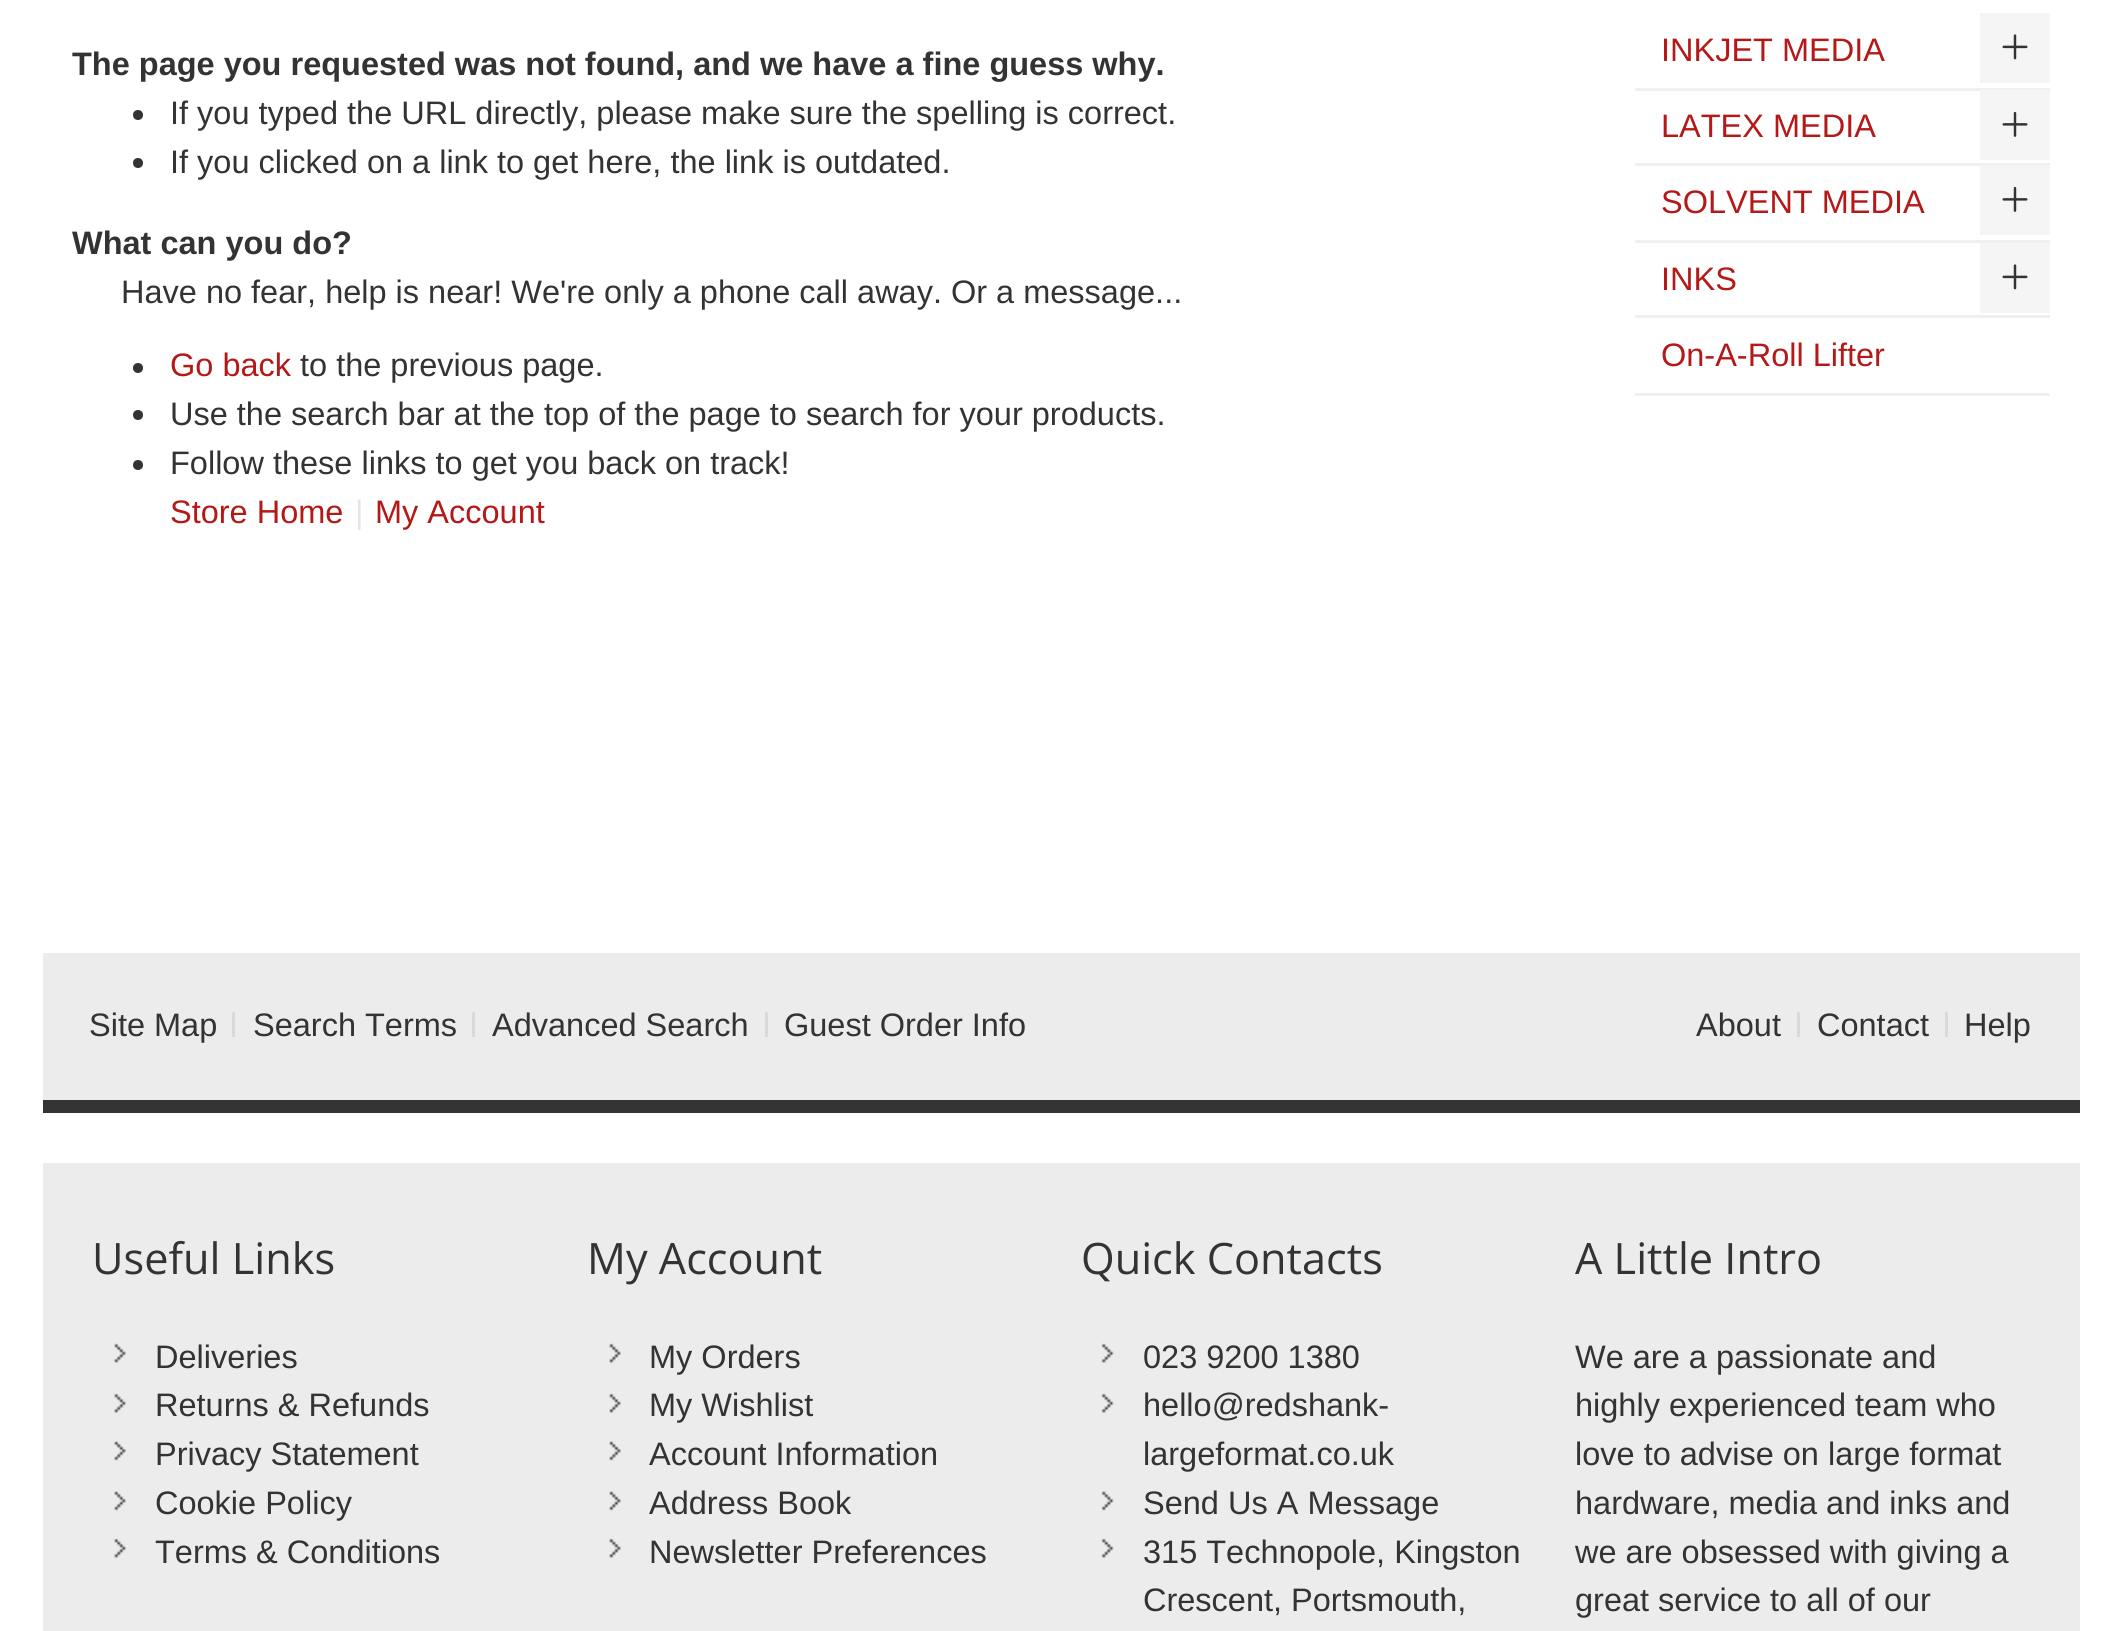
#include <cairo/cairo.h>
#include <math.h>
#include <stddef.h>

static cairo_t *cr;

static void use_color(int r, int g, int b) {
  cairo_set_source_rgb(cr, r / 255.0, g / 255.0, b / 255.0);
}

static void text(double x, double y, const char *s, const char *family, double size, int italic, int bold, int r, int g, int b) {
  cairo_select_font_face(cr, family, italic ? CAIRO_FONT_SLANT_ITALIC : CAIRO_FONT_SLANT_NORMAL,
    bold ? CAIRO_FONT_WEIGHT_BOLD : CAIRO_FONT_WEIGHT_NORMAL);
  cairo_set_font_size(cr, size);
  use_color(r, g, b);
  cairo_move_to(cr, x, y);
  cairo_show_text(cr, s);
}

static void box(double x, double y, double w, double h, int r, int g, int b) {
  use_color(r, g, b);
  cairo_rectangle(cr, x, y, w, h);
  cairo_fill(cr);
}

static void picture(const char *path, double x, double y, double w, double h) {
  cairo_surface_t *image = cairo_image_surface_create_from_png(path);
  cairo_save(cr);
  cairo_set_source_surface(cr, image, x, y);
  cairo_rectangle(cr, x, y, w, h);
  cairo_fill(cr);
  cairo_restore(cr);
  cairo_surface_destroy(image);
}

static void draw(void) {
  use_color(255, 255, 255);
  cairo_paint(cr);
  use_color(51, 51, 51);
  cairo_arc(cr, 138, 115, 5, 0, 2 * M_PI);
  cairo_fill(cr);
  cairo_arc(cr, 138, 163, 5, 0, 2 * M_PI);
  cairo_fill(cr);
  cairo_arc(cr, 138, 368, 5, 0, 2 * M_PI);
  cairo_fill(cr);
  cairo_arc(cr, 138, 415, 5, 0, 2 * M_PI);
  cairo_fill(cr);
  cairo_arc(cr, 138, 465, 5, 0, 2 * M_PI);
  cairo_fill(cr);
  box(1635, 88, 415, 3, 240, 240, 240);
  box(1980, 13, 70, 70, 245, 245, 245);
  picture("img_01.png", 2002, 34, 26, 26);
  box(1635, 163, 415, 3, 240, 240, 240);
  box(1980, 90, 70, 70, 245, 245, 245);
  picture("img_02.png", 2002, 111, 26, 26);
  box(1635, 240, 415, 3, 240, 240, 240);
  box(1980, 165, 70, 70, 245, 245, 245);
  picture("img_02.png", 2002, 186, 26, 26);
  box(1635, 315, 415, 3, 240, 240, 240);
  box(1980, 243, 70, 70, 245, 245, 245);
  picture("img_01.png", 2002, 264, 26, 26);
  box(1635, 393, 415, 3, 240, 240, 240);
  box(43, 953, 2037, 147, 236, 236, 236);
  box(43, 1100, 2037, 13, 51, 51, 51);
  box(232, 1012, 3, 25, 217, 217, 217);
  box(472, 1012, 3, 25, 217, 217, 217);
  box(765, 1012, 3, 25, 217, 217, 217);
  box(1797, 1012, 3, 25, 217, 217, 217);
  box(1945, 1012, 3, 25, 217, 217, 217);
  box(43, 1163, 2037, 468, 236, 236, 236);
  picture("img_03.png", 114, 1343, 12, 20);
  picture("img_03.png", 114, 1393, 12, 20);
  picture("img_04.png", 114, 1441, 12, 20);
  picture("img_04.png", 114, 1491, 12, 20);
  picture("img_03.png", 114, 1538, 12, 20);
  picture("img_05.png", 609, 1343, 12, 20);
  picture("img_05.png", 609, 1393, 12, 20);
  picture("img_06.png", 609, 1441, 12, 20);
  picture("img_06.png", 609, 1491, 12, 20);
  picture("img_05.png", 609, 1538, 12, 20);
  picture("img_07.png", 1101, 1343, 13, 20);
  picture("img_07.png", 1101, 1393, 13, 20);
  picture("img_08.png", 1101, 1491, 13, 20);
  picture("img_07.png", 1101, 1538, 13, 20);
  text(72, 75, "The page you requested was not found, and we have a fine guess why.", "Liberation Sans", 32.5, 0, 1, 51, 51, 51);
  text(170, 124, "If you typed the URL directly, please make sure the spelling is correct.", "Liberation Sans", 32.5, 0, 0, 51, 51, 51);
  text(170, 173, "If you clicked on a link to get here, the link is outdated.", "Liberation Sans", 32.5, 0, 0, 51, 51, 51);
  text(72, 254, "What can you do?", "Liberation Sans", 32.5, 0, 1, 51, 51, 51);
  text(121, 303, "Have no fear, help is near! We're only a phone call away. Or a message...", "Liberation Sans", 32.5, 0, 0, 51, 51, 51);
  text(170, 376, "Go back", "Liberation Sans", 32.5, 0, 0, 180, 25, 24);
  text(300, 376, "to the previous page.", "Liberation Sans", 32.5, 0, 0, 51, 51, 51);
  text(170, 425, "Use the search bar at the top of the page to search for your products.", "Liberation Sans", 32.5, 0, 0, 51, 51, 51);
  text(170, 474, "Follow these links to get you back on track!", "Liberation Sans", 32.5, 0, 0, 51, 51, 51);
  text(170, 523, "Store Home", "Liberation Sans", 32.5, 0, 0, 180, 25, 24);
  text(355, 523, "|", "Liberation Sans", 32.5, 0, 0, 229, 229, 229);
  text(375, 523, "My Account", "Liberation Sans", 32.5, 0, 0, 180, 25, 24);
  text(1661, 61, "INKJET MEDIA", "Liberation Sans", 32.5, 0, 0, 180, 25, 24);
  text(1661, 137, "LATEX MEDIA", "Liberation Sans", 32.5, 0, 0, 180, 25, 24);
  text(1661, 213, "SOLVENT MEDIA", "Liberation Sans", 32.5, 0, 0, 180, 25, 24);
  text(1661, 290, "INKS", "Liberation Sans", 32.5, 0, 0, 180, 25, 24);
  text(1661, 366, "On-A-Roll Lifter", "Liberation Sans", 32.5, 0, 0, 180, 25, 24);
  text(89, 1036, "Site Map", "Liberation Sans", 32.5, 0, 0, 51, 51, 51);
  text(253, 1036, "Search Terms", "Liberation Sans", 32.5, 0, 0, 51, 51, 51);
  text(492, 1036, "Advanced Search", "Liberation Sans", 32.5, 0, 0, 51, 51, 51);
  text(784, 1036, "Guest Order Info", "Liberation Sans", 32.5, 0, 0, 51, 51, 51);
  text(1696, 1036, "About", "Liberation Sans", 32.5, 0, 0, 51, 51, 51);
  text(1817, 1036, "Contact", "Liberation Sans", 32.5, 0, 0, 51, 51, 51);
  text(1964, 1036, "Help", "Liberation Sans", 32.5, 0, 0, 51, 51, 51);
  text(92, 1274, "Useful Links", "Open Sans", 43.25, 0, 0, 51, 51, 51);
  text(155, 1368, "Deliveries", "Liberation Sans", 32.5, 0, 0, 51, 51, 51);
  text(155, 1416, "Returns & Refunds", "Liberation Sans", 32.5, 0, 0, 51, 51, 51);
  text(155, 1465, "Privacy Statement", "Liberation Sans", 32.5, 0, 0, 51, 51, 51);
  text(155, 1514, "Cookie Policy", "Liberation Sans", 32.5, 0, 0, 51, 51, 51);
  text(155, 1563, "Terms & Conditions", "Liberation Sans", 32.5, 0, 0, 51, 51, 51);
  text(587, 1274, "My Account", "Open Sans", 43.25, 0, 0, 51, 51, 51);
  text(649, 1368, "My Orders", "Liberation Sans", 32.5, 0, 0, 51, 51, 51);
  text(649, 1416, "My Wishlist", "Liberation Sans", 32.5, 0, 0, 51, 51, 51);
  text(649, 1465, "Account Information", "Liberation Sans", 32.5, 0, 0, 51, 51, 51);
  text(649, 1514, "Address Book", "Liberation Sans", 32.5, 0, 0, 51, 51, 51);
  text(649, 1563, "Newsletter Preferences", "Liberation Sans", 32.5, 0, 0, 51, 51, 51);
  text(1081, 1274, "Quick Contacts", "Open Sans", 43.25, 0, 0, 51, 51, 51);
  text(1143, 1368, "023 9200 1380", "Liberation Sans", 32.5, 0, 0, 51, 51, 51);
  text(1143, 1416, "hello@redshank-", "Liberation Sans", 32.5, 0, 0, 51, 51, 51);
  text(1143, 1465, "largeformat.co.uk", "Liberation Sans", 32.5, 0, 0, 51, 51, 51);
  text(1143, 1514, "Send Us A Message", "Liberation Sans", 32.5, 0, 0, 51, 51, 51);
  text(1143, 1563, "315 Technopole, Kingston", "Liberation Sans", 32.5, 0, 0, 51, 51, 51);
  text(1143, 1611, "Crescent, Portsmouth,", "Liberation Sans", 32.5, 0, 0, 51, 51, 51);
  text(1575, 1274, "A Little Intro", "Open Sans", 43.25, 0, 0, 51, 51, 51);
  text(1575, 1368, "We are a passionate and", "Liberation Sans", 32.5, 0, 0, 51, 51, 51);
  text(1575, 1416, "highly experienced team who", "Liberation Sans", 32.5, 0, 0, 51, 51, 51);
  text(1575, 1465, "love to advise on large format", "Liberation Sans", 32.5, 0, 0, 51, 51, 51);
  text(1575, 1514, "hardware, media and inks and", "Liberation Sans", 32.5, 0, 0, 51, 51, 51);
  text(1575, 1563, "we are obsessed with giving a", "Liberation Sans", 32.5, 0, 0, 51, 51, 51);
  text(1575, 1611, "great service to all of our", "Liberation Sans", 32.5, 0, 0, 51, 51, 51);
}

int main(void) {
  cairo_surface_t *surface = cairo_image_surface_create(CAIRO_FORMAT_RGB24, 2121, 1631);
  cr = cairo_create(surface);
  cairo_font_options_t *options = cairo_font_options_create();
  cairo_font_options_set_hint_metrics(options, CAIRO_HINT_METRICS_OFF);
  cairo_font_options_set_hint_style(options, CAIRO_HINT_STYLE_NONE);
  cairo_set_font_options(cr, options);
  cairo_set_miter_limit(cr, 4);
  draw();
  cairo_surface_write_to_png(surface, "out.png");
  cairo_font_options_destroy(options);
  cairo_destroy(cr);
  cairo_surface_destroy(surface);
  return 0;
}
